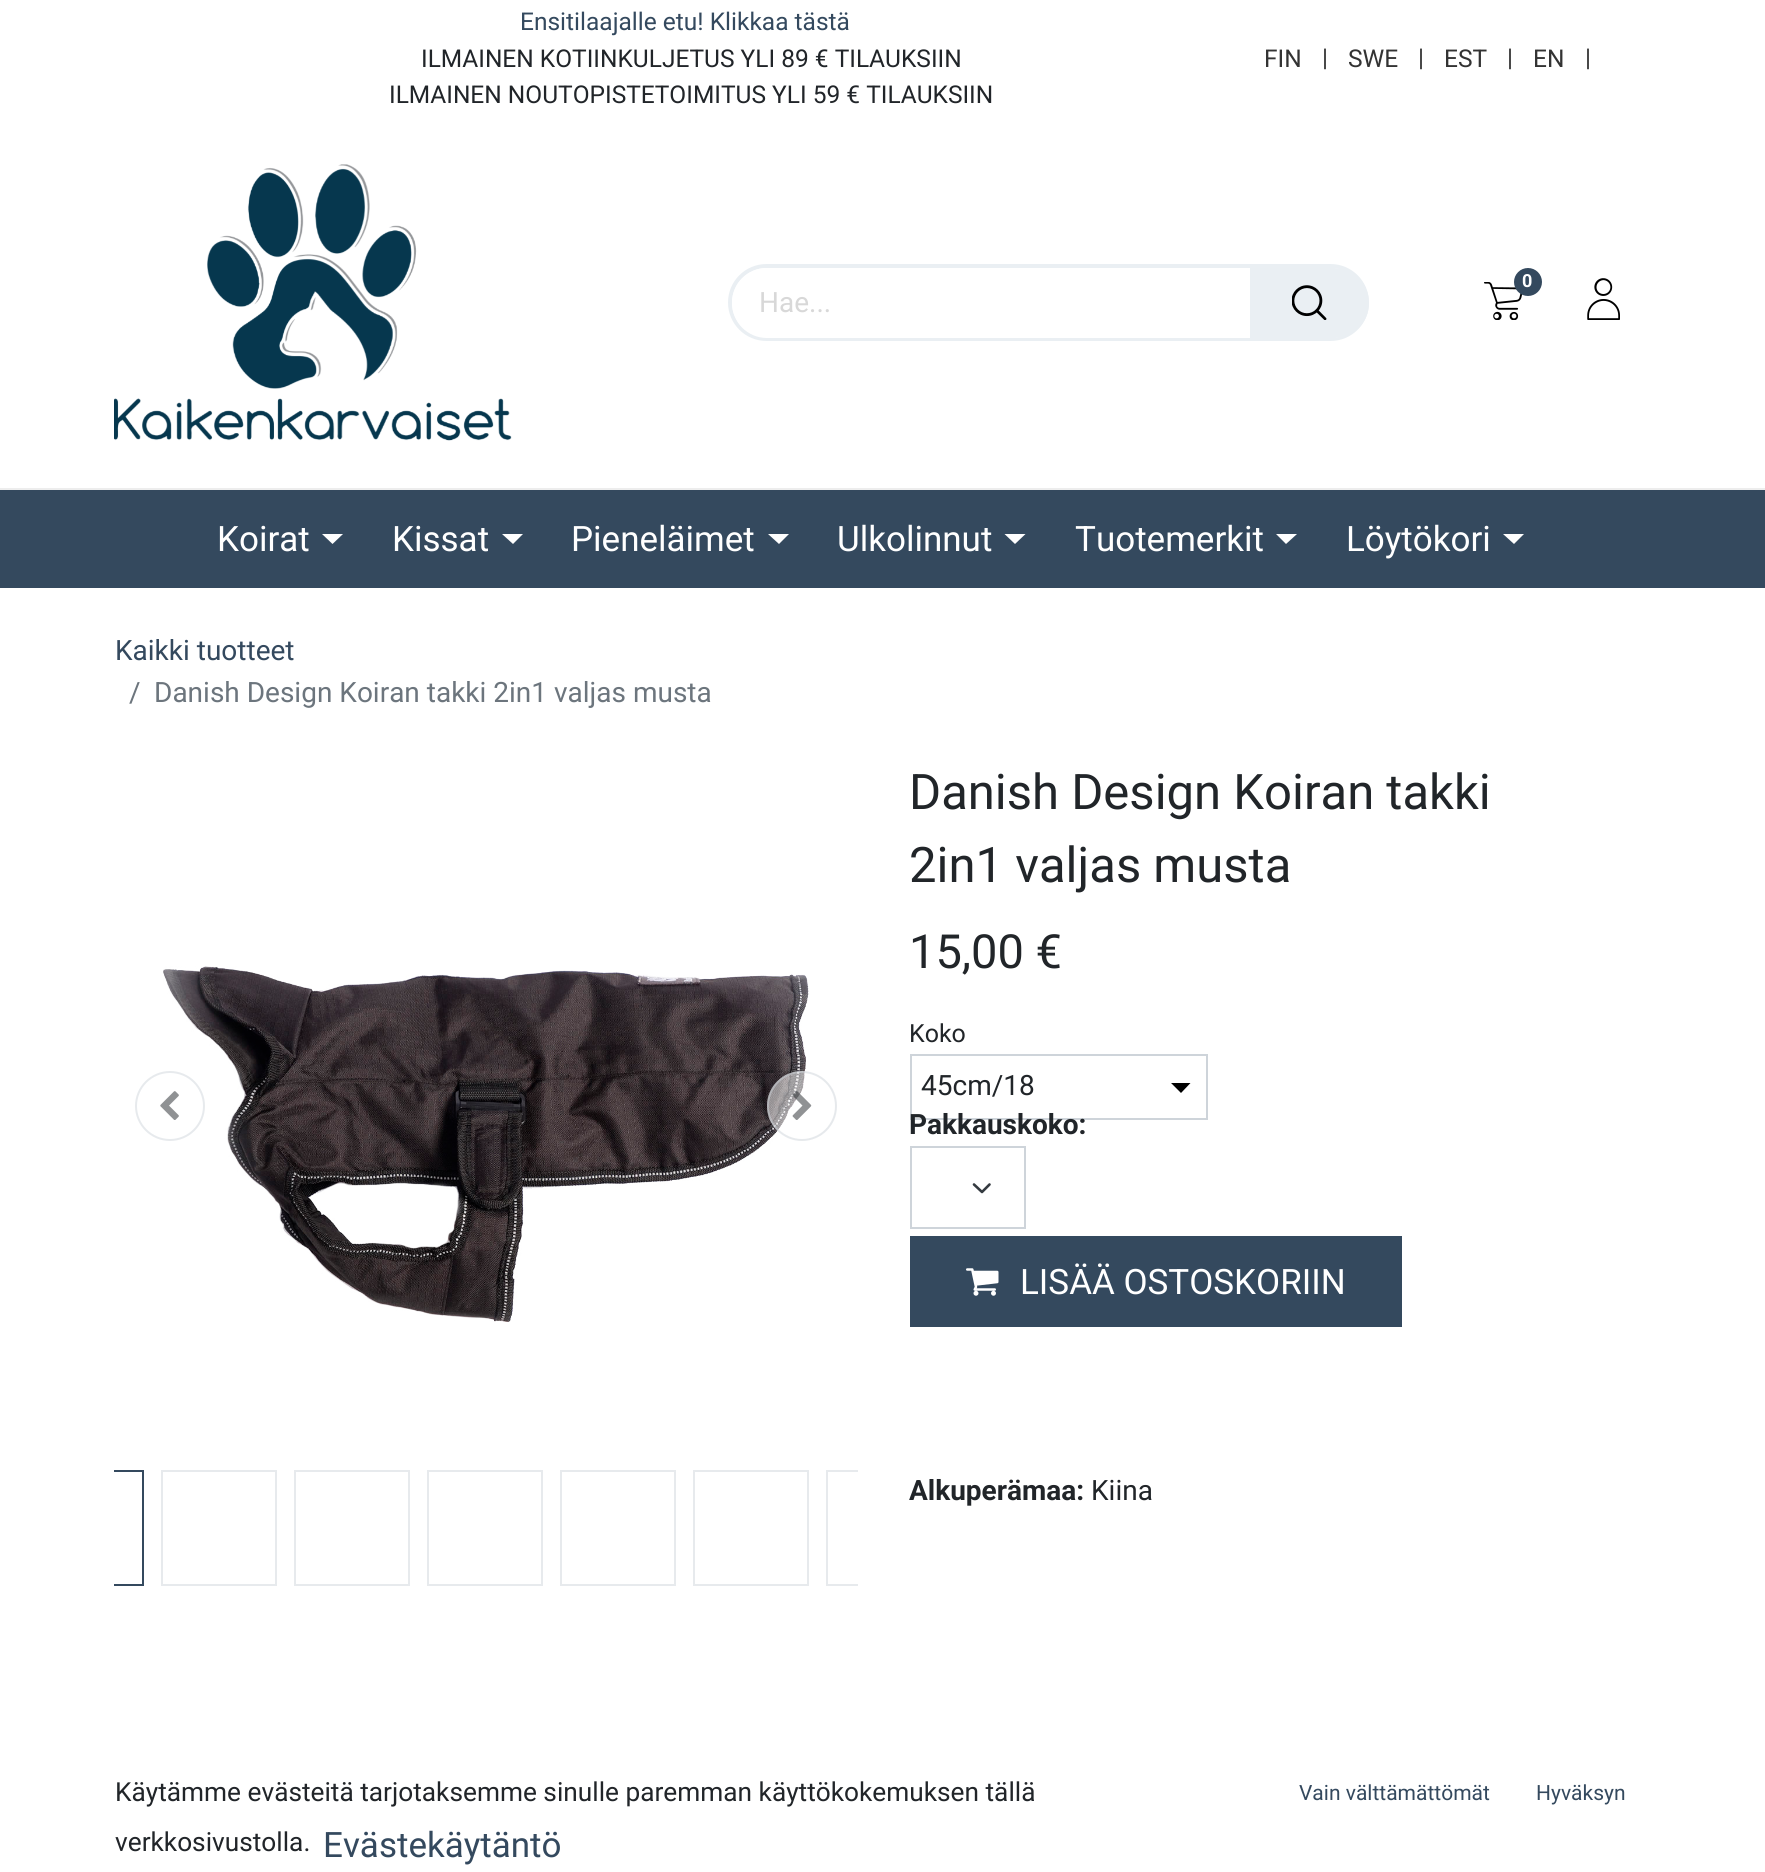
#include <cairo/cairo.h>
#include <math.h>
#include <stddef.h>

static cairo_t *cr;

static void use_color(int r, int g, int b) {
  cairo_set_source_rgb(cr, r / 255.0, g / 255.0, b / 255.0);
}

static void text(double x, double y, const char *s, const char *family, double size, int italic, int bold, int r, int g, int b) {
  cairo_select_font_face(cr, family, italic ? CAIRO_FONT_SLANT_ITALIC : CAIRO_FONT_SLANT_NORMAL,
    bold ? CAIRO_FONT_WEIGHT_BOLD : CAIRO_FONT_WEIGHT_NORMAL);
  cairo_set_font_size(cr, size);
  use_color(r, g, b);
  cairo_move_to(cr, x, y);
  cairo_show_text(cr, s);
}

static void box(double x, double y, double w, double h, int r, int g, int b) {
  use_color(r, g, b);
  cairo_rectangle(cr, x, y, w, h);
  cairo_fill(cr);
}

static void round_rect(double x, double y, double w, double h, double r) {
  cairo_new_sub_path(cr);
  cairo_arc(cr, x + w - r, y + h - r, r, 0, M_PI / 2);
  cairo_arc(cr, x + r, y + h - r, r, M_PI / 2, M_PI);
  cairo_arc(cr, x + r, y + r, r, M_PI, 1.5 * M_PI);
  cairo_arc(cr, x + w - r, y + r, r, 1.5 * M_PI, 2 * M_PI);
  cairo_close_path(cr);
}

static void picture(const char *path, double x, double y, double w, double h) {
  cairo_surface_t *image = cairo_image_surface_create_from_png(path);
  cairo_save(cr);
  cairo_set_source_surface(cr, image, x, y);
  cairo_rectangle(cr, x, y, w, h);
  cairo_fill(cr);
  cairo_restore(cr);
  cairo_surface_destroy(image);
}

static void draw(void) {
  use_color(255, 255, 255);
  cairo_paint(cr);
  picture("img_01.png", 114, 164, 398, 277);
  picture("img_02.png", 1484, 282, 39, 38);
  use_color(52, 73, 94);
  cairo_arc(cr, 1528, 282, 14, 0, 2 * M_PI);
  cairo_fill(cr);
  picture("img_03.png", 1587, 278, 33, 42);
  round_rect(730, 266, 637, 73, 36.5);
  use_color(234, 239, 243);
  cairo_set_line_width(cr, 4);
  cairo_stroke(cr);
  use_color(255, 255, 255);
  round_rect(732, 268, 633, 70, 35);
  cairo_fill(cr);
  use_color(234, 239, 243);
  cairo_new_path(cr);
  cairo_move_to(cr, 1250, 268);
  cairo_line_to(cr, 1334, 268);
  cairo_curve_to(cr, 1353.5, 268, 1369, 283.5, 1369, 303);
  cairo_curve_to(cr, 1369, 322.5, 1353.5, 338, 1334, 338);
  cairo_line_to(cr, 1250, 338);
  cairo_close_path(cr);
  cairo_fill(cr);
  picture("img_04.png", 1292, 285, 35, 35);
  box(0, 490, 1765, 98, 52, 73, 94);
  box(0, 488, 1765, 2, 237, 237, 237);
  use_color(255, 255, 255);
  cairo_new_path(cr);
  cairo_move_to(cr, 322, 534);
  cairo_line_to(cr, 343, 534);
  cairo_line_to(cr, 332.5, 544);
  cairo_close_path(cr);
  cairo_fill(cr);
  cairo_new_path(cr);
  cairo_move_to(cr, 502, 534);
  cairo_line_to(cr, 523, 534);
  cairo_line_to(cr, 513, 544);
  cairo_close_path(cr);
  cairo_fill(cr);
  cairo_new_path(cr);
  cairo_move_to(cr, 768, 534);
  cairo_line_to(cr, 789, 534);
  cairo_line_to(cr, 779, 544);
  cairo_close_path(cr);
  cairo_fill(cr);
  cairo_new_path(cr);
  cairo_move_to(cr, 1004.5, 534);
  cairo_line_to(cr, 1025.5, 534);
  cairo_line_to(cr, 1015, 544);
  cairo_close_path(cr);
  cairo_fill(cr);
  cairo_new_path(cr);
  cairo_move_to(cr, 1276, 534);
  cairo_line_to(cr, 1297, 534);
  cairo_line_to(cr, 1286, 544);
  cairo_close_path(cr);
  cairo_fill(cr);
  cairo_new_path(cr);
  cairo_move_to(cr, 1503, 534);
  cairo_line_to(cr, 1524, 534);
  cairo_line_to(cr, 1514, 544);
  cairo_close_path(cr);
  cairo_fill(cr);
  picture("img_05.png", 163, 966, 646, 356);
  cairo_arc(cr, 170, 1106, 34, 0, 2 * M_PI);
  use_color(231, 234, 237);
  cairo_set_line_width(cr, 2);
  cairo_stroke(cr);
  picture("img_06.png", 160, 1091, 19, 29);
  cairo_set_source_rgba(cr, 1, 1, 1, 0.5);
  cairo_arc(cr, 802, 1106, 35, 0, 2 * M_PI);
  cairo_fill(cr);
  cairo_arc(cr, 802, 1106, 34, 0, 2 * M_PI);
  cairo_set_source_rgba(cr, 0.808, 0.831, 0.855, 0.5);
  cairo_stroke(cr);
  picture("img_07.png", 792, 1091, 20, 29);
  cairo_save(cr);
  cairo_rectangle(cr, 114, 1456, 744, 130);
  cairo_clip(cr);
  cairo_rectangle(cr, 29, 1471, 114, 114);
  use_color(52, 73, 94);
  cairo_stroke(cr);
  cairo_restore(cr);
  cairo_rectangle(cr, 162, 1471, 114, 114);
  use_color(231, 234, 237);
  cairo_stroke(cr);
  cairo_rectangle(cr, 295, 1471, 114, 114);
  cairo_stroke(cr);
  cairo_rectangle(cr, 428, 1471, 114, 114);
  cairo_stroke(cr);
  cairo_rectangle(cr, 561, 1471, 114, 114);
  cairo_stroke(cr);
  cairo_rectangle(cr, 694, 1471, 114, 114);
  cairo_stroke(cr);
  cairo_save(cr);
  cairo_rectangle(cr, 114, 1456, 744, 130);
  cairo_clip(cr);
  cairo_rectangle(cr, 827, 1471, 114, 114);
  cairo_stroke(cr);
  cairo_restore(cr);
  use_color(0, 0, 0);
  cairo_new_path(cr);
  cairo_move_to(cr, 1171, 1083);
  cairo_line_to(cr, 1190.5, 1083);
  cairo_line_to(cr, 1181, 1093);
  cairo_close_path(cr);
  cairo_fill(cr);
  cairo_rectangle(cr, 911, 1055, 296, 64);
  use_color(206, 212, 218);
  cairo_stroke(cr);
  cairo_new_path(cr);
  cairo_move_to(cr, 974, 1184.5);
  cairo_line_to(cr, 982, 1192);
  cairo_line_to(cr, 989.5, 1184.5);
  use_color(52, 58, 64);
  cairo_set_line_width(cr, 2.6);
  cairo_set_line_cap(cr, CAIRO_LINE_CAP_ROUND);
  cairo_set_line_join(cr, CAIRO_LINE_JOIN_ROUND);
  cairo_stroke(cr);
  cairo_rectangle(cr, 911, 1147, 114, 81);
  use_color(206, 212, 218);
  cairo_set_line_width(cr, 2);
  cairo_set_line_cap(cr, CAIRO_LINE_CAP_BUTT);
  cairo_set_line_join(cr, CAIRO_LINE_JOIN_MITER);
  cairo_stroke(cr);
  box(910, 1236, 492, 91, 52, 73, 94);
  picture("img_08.png", 966, 1268, 33, 28);
  text(520, 30, "Ensitilaajalle etu! Klikkaa tästä", "Roboto", 24.5, 0, 0, 52, 73, 94);
  text(421, 67, "ILMAINEN KOTIINKULJETUS YLI 89 € TILAUKSIIN", "Roboto", 24.5, 0, 0, 33, 37, 41);
  text(389, 103, "ILMAINEN NOUTOPISTETOIMITUS YLI 59 € TILAUKSIIN", "Roboto", 24.5, 0, 0, 33, 37, 41);
  text(1264, 67, "FIN", "Roboto", 24.5, 0, 0, 51, 51, 51);
  text(1322, 66, "|", "Roboto", 24.5, 0, 0, 51, 51, 51);
  text(1348, 67, "SWE", "Roboto", 24.5, 0, 0, 51, 51, 51);
  text(1418, 66, "|", "Roboto", 24.5, 0, 0, 51, 51, 51);
  text(1444, 67, "EST", "Roboto", 24.5, 0, 0, 51, 51, 51);
  text(1507, 66, "|", "Roboto", 24.5, 0, 0, 51, 51, 51);
  text(1533, 67, "EN", "Roboto", 24.5, 0, 0, 51, 51, 51);
  text(1585, 66, "|", "Roboto", 24.5, 0, 0, 51, 51, 51);
  text(1522, 287, "0", "Roboto", 18, 0, 1, 255, 255, 255);
  text(759, 312, "Hae...", "Roboto", 28, 0, 0, 216, 216, 216);
  text(217, 551, "Koirat", "Roboto", 35, 0, 0, 255, 255, 255);
  text(392, 551, "Kissat", "Roboto", 35, 0, 0, 255, 255, 255);
  text(571, 551, "Pieneläimet", "Roboto", 35, 0, 0, 255, 255, 255);
  text(837, 551, "Ulkolinnut", "Roboto", 35, 0, 0, 255, 255, 255);
  text(1075, 551, "Tuotemerkit", "Roboto", 35, 0, 0, 255, 255, 255);
  text(1346, 551, "Löytökori", "Roboto", 35, 0, 0, 255, 255, 255);
  text(115, 660, "Kaikki tuotteet", "Roboto", 28, 0, 0, 52, 73, 94);
  text(129, 702, "/", "Roboto", 28, 0, 0, 108, 117, 125);
  text(154, 702, "Danish Design Koiran takki 2in1 valjas musta", "Roboto", 28, 0, 0, 108, 117, 125);
  text(909, 809, "Danish Design Koiran takki", "Roboto", 49, 0, 0, 33, 37, 41);
  text(909, 882, "2in1 valjas musta", "Roboto", 49, 0, 0, 33, 37, 41);
  text(909, 968, "15,00 €", "Roboto", 47, 0, 0, 33, 37, 41);
  text(909, 1042, "Koko", "Roboto", 25, 0, 0, 33, 37, 41);
  text(921, 1095, "45cm/18", "Roboto", 28, 0, 0, 33, 37, 41);
  text(909, 1134, "Pakkauskoko:", "Roboto", 28, 0, 1, 33, 37, 41);
  text(1020, 1294, "LISÄÄ OSTOSKORIIN", "Roboto", 35, 0, 0, 255, 255, 255);
  text(909, 1500, "Alkuperämaa:", "Roboto", 28, 0, 1, 33, 37, 41);
  text(1091, 1500, "Kiina", "Roboto", 28, 0, 0, 33, 37, 41);
  text(115, 1801, "Käytämme evästeitä tarjotaksemme sinulle paremman käyttökokemuksen tällä", "Roboto", 26.25, 0, 0, 33, 37, 41);
  text(115, 1851, "verkkosivustolla.", "Roboto", 26.25, 0, 0, 33, 37, 41);
  text(323, 1857, "Evästekäytäntö", "Roboto", 35, 0, 0, 52, 73, 94);
  text(1299, 1800, "Vain välttämättömät", "Roboto", 21, 0, 0, 52, 73, 94);
  text(1536, 1800, "Hyväksyn", "Roboto", 21, 0, 0, 52, 73, 94);
}

int main(void) {
  cairo_surface_t *surface = cairo_image_surface_create(CAIRO_FORMAT_RGB24, 1765, 1872);
  cr = cairo_create(surface);
  cairo_font_options_t *options = cairo_font_options_create();
  cairo_font_options_set_hint_metrics(options, CAIRO_HINT_METRICS_OFF);
  cairo_font_options_set_hint_style(options, CAIRO_HINT_STYLE_NONE);
  cairo_set_font_options(cr, options);
  cairo_set_miter_limit(cr, 4);
  draw();
  cairo_surface_write_to_png(surface, "out.png");
  cairo_font_options_destroy(options);
  cairo_destroy(cr);
  cairo_surface_destroy(surface);
  return 0;
}
